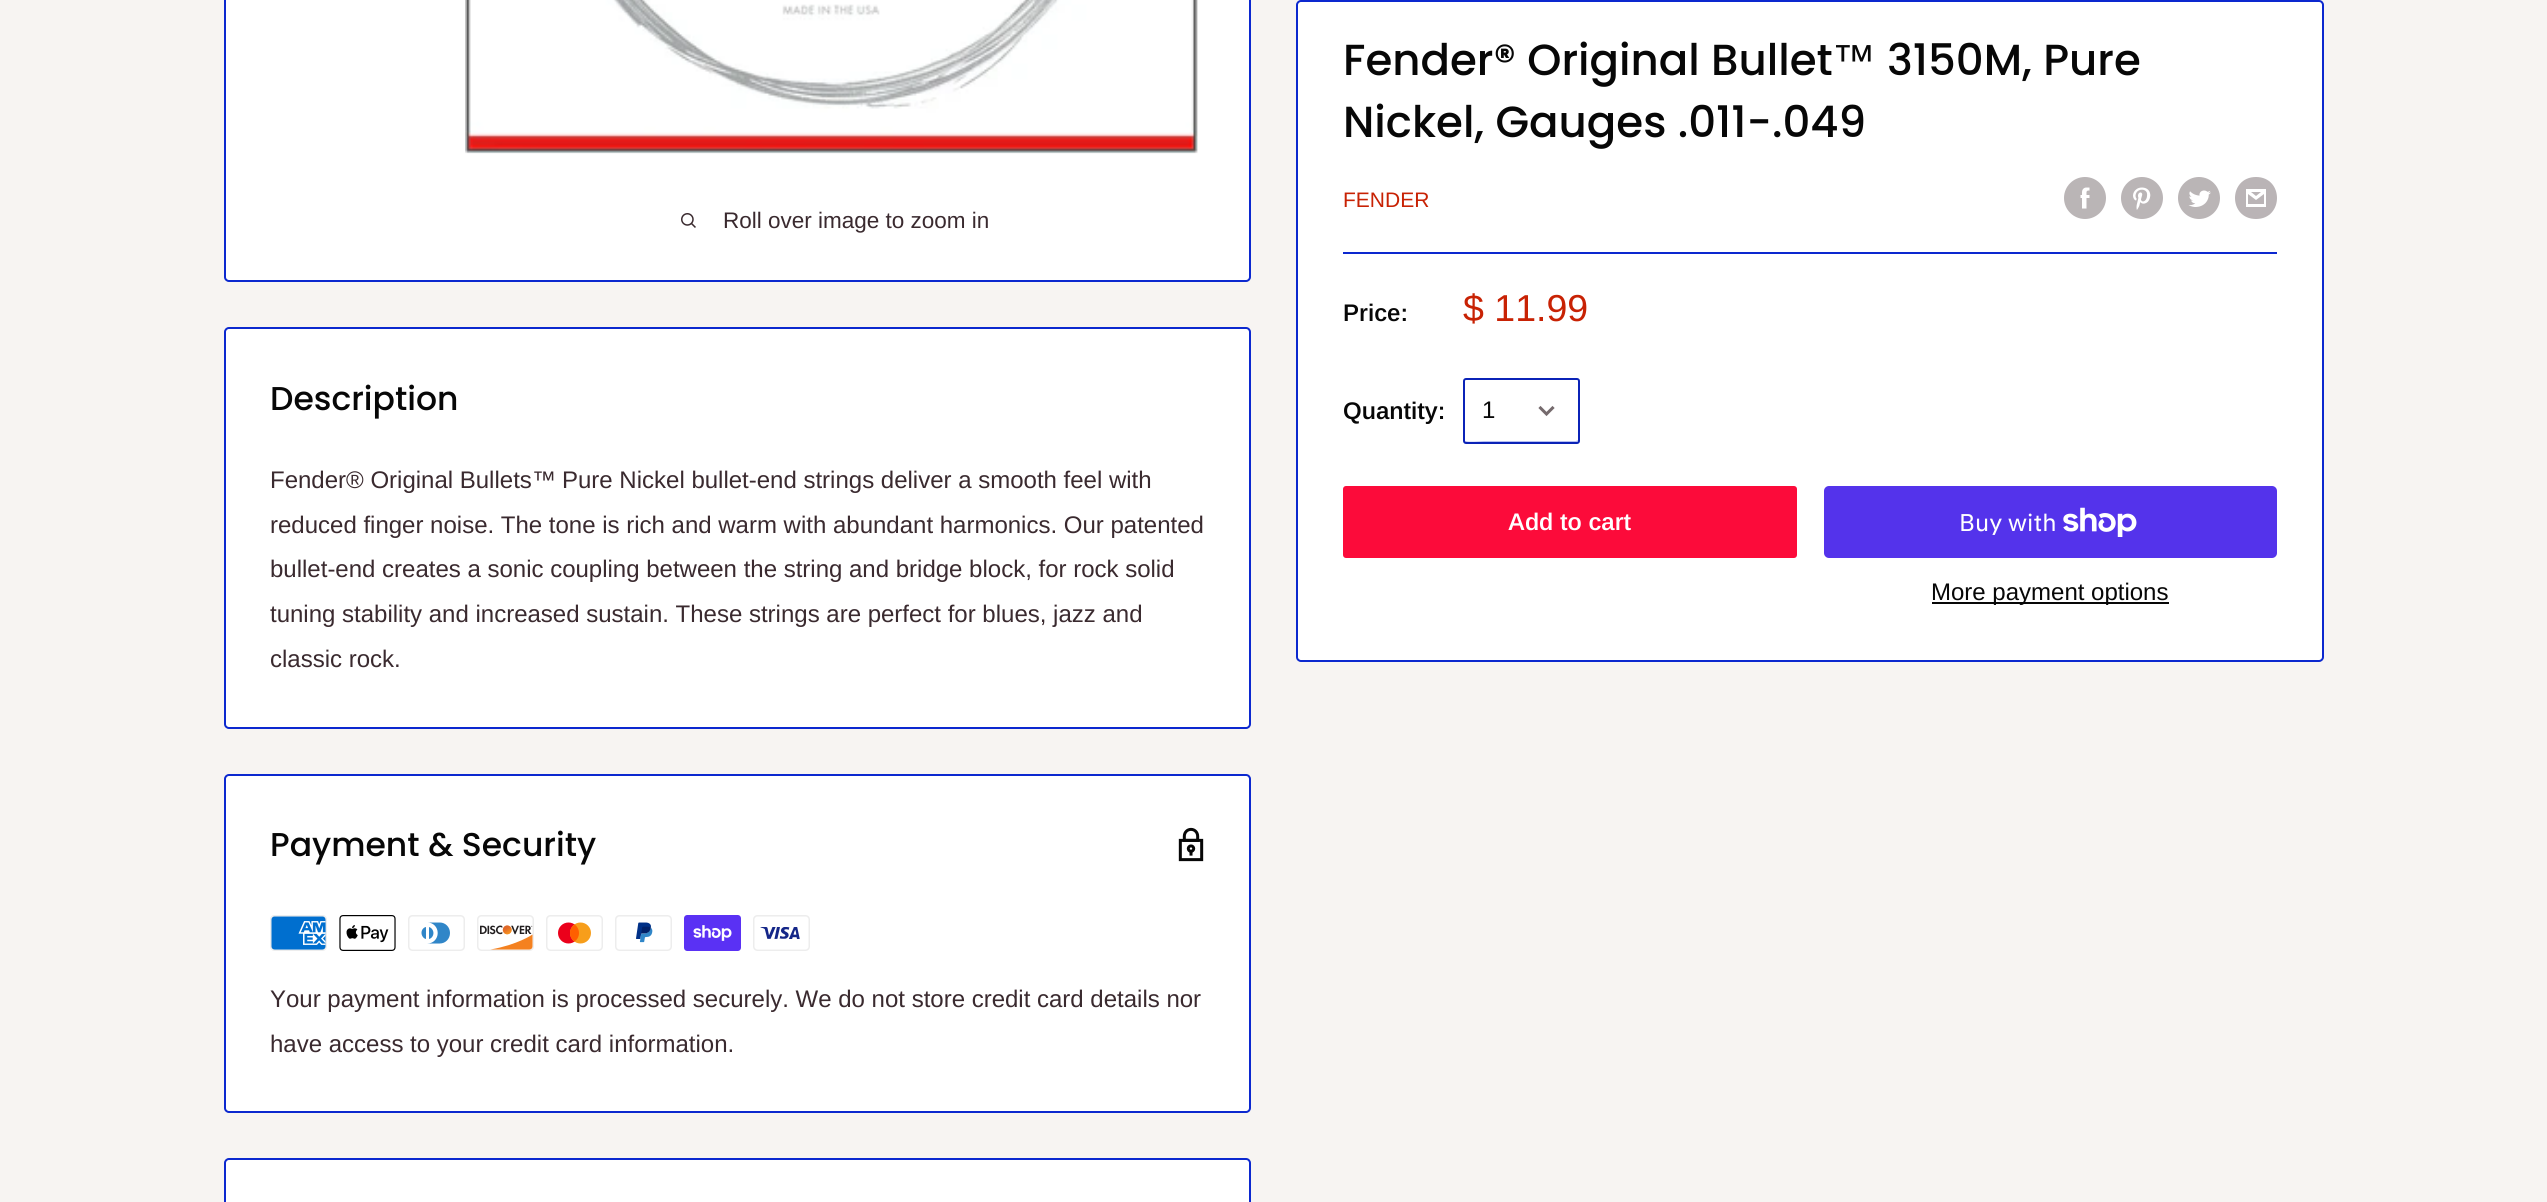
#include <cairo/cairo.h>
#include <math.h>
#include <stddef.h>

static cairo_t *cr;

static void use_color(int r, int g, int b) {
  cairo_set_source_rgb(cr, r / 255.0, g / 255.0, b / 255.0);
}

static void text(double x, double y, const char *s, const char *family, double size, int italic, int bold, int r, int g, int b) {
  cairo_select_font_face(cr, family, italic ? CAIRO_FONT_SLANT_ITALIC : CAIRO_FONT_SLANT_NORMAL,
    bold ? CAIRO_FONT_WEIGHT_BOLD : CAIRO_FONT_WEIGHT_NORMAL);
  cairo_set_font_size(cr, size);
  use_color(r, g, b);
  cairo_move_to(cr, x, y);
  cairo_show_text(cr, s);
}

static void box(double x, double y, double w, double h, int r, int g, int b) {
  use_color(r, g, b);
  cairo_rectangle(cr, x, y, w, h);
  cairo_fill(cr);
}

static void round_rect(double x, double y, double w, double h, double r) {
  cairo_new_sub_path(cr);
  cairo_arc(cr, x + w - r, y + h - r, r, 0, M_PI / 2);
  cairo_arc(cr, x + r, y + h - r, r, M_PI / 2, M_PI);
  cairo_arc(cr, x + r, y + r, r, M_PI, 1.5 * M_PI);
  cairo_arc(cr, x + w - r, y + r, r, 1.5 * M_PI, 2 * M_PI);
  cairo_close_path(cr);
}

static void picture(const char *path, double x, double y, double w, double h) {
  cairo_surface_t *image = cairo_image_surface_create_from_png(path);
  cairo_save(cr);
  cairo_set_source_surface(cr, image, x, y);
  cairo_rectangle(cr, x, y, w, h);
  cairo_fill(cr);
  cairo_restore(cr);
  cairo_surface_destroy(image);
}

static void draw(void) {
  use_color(247, 244, 242);
  cairo_paint(cr);
  use_color(255, 255, 255);
  round_rect(225, -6, 1025, 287, 4);
  cairo_fill_preserve(cr);
  use_color(12, 40, 207);
  cairo_stroke(cr);
  picture("img_01.png", 465, 0, 733, 154);
  picture("img_02.png", 681, 213, 15, 15);
  use_color(255, 255, 255);
  round_rect(1297, 1, 1026, 660, 4);
  cairo_fill_preserve(cr);
  use_color(12, 40, 207);
  cairo_stroke(cr);
  picture("img_03.png", 2064, 177, 42, 42);
  picture("img_04.png", 2121, 177, 42, 42);
  picture("img_05.png", 2178, 177, 42, 42);
  use_color(186, 180, 182);
  cairo_new_path(cr);
  cairo_move_to(cr, 2256, 219);
  cairo_curve_to(cr, 2228, 219, 2228, 177, 2256, 177);
  cairo_curve_to(cr, 2284, 177, 2284, 219, 2256, 219);
  cairo_close_path(cr);
  cairo_move_to(cr, 2251, 192);
  cairo_line_to(cr, 2261, 192);
  cairo_line_to(cr, 2256, 196);
  cairo_close_path(cr);
  cairo_move_to(cr, 2264, 194);
  cairo_line_to(cr, 2264, 204);
  cairo_line_to(cr, 2248, 204);
  cairo_line_to(cr, 2248, 194);
  cairo_line_to(cr, 2256, 200);
  cairo_close_path(cr);
  cairo_move_to(cr, 2266, 189);
  cairo_line_to(cr, 2246, 189);
  cairo_line_to(cr, 2246, 207);
  cairo_line_to(cr, 2266, 207);
  cairo_close_path(cr);
  cairo_fill(cr);
  box(1343, 252, 934, 2, 12, 40, 207);
  use_color(182, 191, 241);
  cairo_new_path(cr);
  cairo_move_to(cr, 1464, 440);
  cairo_curve_to(cr, 1464, 441, 1464, 442, 1465, 443);
  cairo_line_to(cr, 1576, 443);
  cairo_curve_to(cr, 1578, 443, 1578, 441, 1578, 440);
  cairo_line_to(cr, 1576, 441);
  cairo_line_to(cr, 1484, 441);
  cairo_curve_to(cr, 1481, 441, 1466, 443, 1464, 440);
  cairo_close_path(cr);
  cairo_fill(cr);
  round_rect(1464, 379, 115, 64, 2);
  use_color(11, 35, 183);
  cairo_stroke(cr);
  cairo_new_path(cr);
  cairo_move_to(cr, 1552.5, 408);
  cairo_line_to(cr, 1546.5, 414);
  cairo_line_to(cr, 1540.5, 408);
  use_color(117, 106, 109);
  cairo_set_line_width(cr, 3);
  cairo_set_line_cap(cr, CAIRO_LINE_CAP_SQUARE);
  cairo_stroke(cr);
  use_color(252, 11, 58);
  round_rect(1343, 486, 454, 72, 3);
  cairo_fill(cr);
  use_color(84, 51, 235);
  round_rect(1824, 486, 453, 72, 5);
  cairo_fill(cr);
  picture("img_06.png", 2063, 507, 74, 30);
  box(1932, 602, 237, 2, 7, 7, 7);
  use_color(255, 255, 255);
  round_rect(225, 328, 1025, 400, 4);
  cairo_fill_preserve(cr);
  use_color(12, 40, 207);
  cairo_set_line_width(cr, 2);
  cairo_set_line_cap(cr, CAIRO_LINE_CAP_BUTT);
  cairo_stroke(cr);
  use_color(255, 255, 255);
  round_rect(225, 775, 1025, 337, 4);
  cairo_fill_preserve(cr);
  use_color(12, 40, 207);
  cairo_stroke(cr);
  picture("img_07.png", 1178, 827, 26, 35);
  picture("img_08.png", 270, 915, 57, 36);
  picture("img_09.png", 339, 915, 57, 36);
  picture("img_10.png", 408, 915, 57, 36);
  picture("img_11.png", 477, 915, 57, 36);
  picture("img_12.png", 546, 915, 57, 36);
  picture("img_13.png", 615, 915, 57, 36);
  picture("img_14.png", 684, 915, 57, 36);
  picture("img_15.png", 753, 915, 57, 36);
  use_color(255, 255, 255);
  round_rect(225, 1159, 1025, 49, 4);
  cairo_fill_preserve(cr);
  use_color(12, 40, 207);
  cairo_stroke(cr);
  text(723, 228, "Roll over image to zoom in", "Arimo", 22.5, 0, 0, 58, 42, 47);
  text(1343, 75, "Fender® Original Bullet", "Poppins Medium", 43.5, 0, 0, 7, 7, 7);
  text(1832, 75, "™", "Liberation Sans", 43.5, 0, 0, 7, 7, 7);
  text(1887, 75, "3150M, Pure", "Poppins Medium", 43.5, 0, 0, 7, 7, 7);
  text(1343, 137, "Nickel, Gauges .011-.049", "Poppins Medium", 43.5, 0, 0, 7, 7, 7);
  text(1343, 207, "FENDER", "Arimo", 21, 0, 0, 200, 34, 4);
  text(1343, 321, "Price:", "Arimo SemiBold", 24, 0, 0, 7, 7, 7);
  text(1463, 321, "$ 11.99", "Arimo", 37.5, 0, 0, 200, 34, 4);
  text(1343, 419, "Quantity:", "Arimo SemiBold", 24, 0, 0, 7, 7, 7);
  text(1482, 418, "1", "Arimo", 24, 0, 0, 7, 7, 7);
  text(1508, 530, "Add to cart", "Arimo SemiBold", 24, 0, 0, 255, 255, 255);
  text(1959, 531, "Buy with", "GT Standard", 24, 0, 0, 255, 255, 255);
  text(1931, 600, "More payment options", "Arimo", 24, 0, 0, 7, 7, 7);
  text(270, 410, "Description", "Poppins Medium", 33, 0, 0, 7, 7, 7);
  text(270, 488, "Fender® Original Bullets", "Arimo", 24, 0, 0, 58, 42, 47);
  text(532, 488, "™", "Liberation Sans", 24, 0, 0, 58, 42, 47);
  text(562, 488, "Pure Nickel bullet-end strings deliver a smooth feel with", "Arimo", 24, 0, 0, 58, 42, 47);
  text(270, 533, "reduced finger noise. The tone is rich and warm with abundant harmonics. Our patented", "Arimo", 24, 0, 0, 58, 42, 47);
  text(270, 577, "bullet-end creates a sonic coupling between the string and bridge block, for rock solid", "Arimo", 24, 0, 0, 58, 42, 47);
  text(270, 622, "tuning stability and increased sustain. These strings are perfect for blues, jazz and", "Arimo", 24, 0, 0, 58, 42, 47);
  text(270, 667, "classic rock.", "Arimo", 24, 0, 0, 58, 42, 47);
  text(270, 856, "Payment & Security", "Poppins Medium", 33, 0, 0, 7, 7, 7);
  text(270, 1007, "Your payment information is processed securely. We do not store credit card details nor", "Arimo", 24, 0, 0, 58, 42, 47);
  text(270, 1052, "have access to your credit card information.", "Arimo", 24, 0, 0, 58, 42, 47);
}

int main(void) {
  cairo_surface_t *surface = cairo_image_surface_create(CAIRO_FORMAT_RGB24, 2547, 1202);
  cr = cairo_create(surface);
  cairo_font_options_t *options = cairo_font_options_create();
  cairo_font_options_set_hint_metrics(options, CAIRO_HINT_METRICS_OFF);
  cairo_font_options_set_hint_style(options, CAIRO_HINT_STYLE_NONE);
  cairo_set_font_options(cr, options);
  cairo_set_miter_limit(cr, 4);
  draw();
  cairo_surface_write_to_png(surface, "out.png");
  cairo_font_options_destroy(options);
  cairo_destroy(cr);
  cairo_surface_destroy(surface);
  return 0;
}
